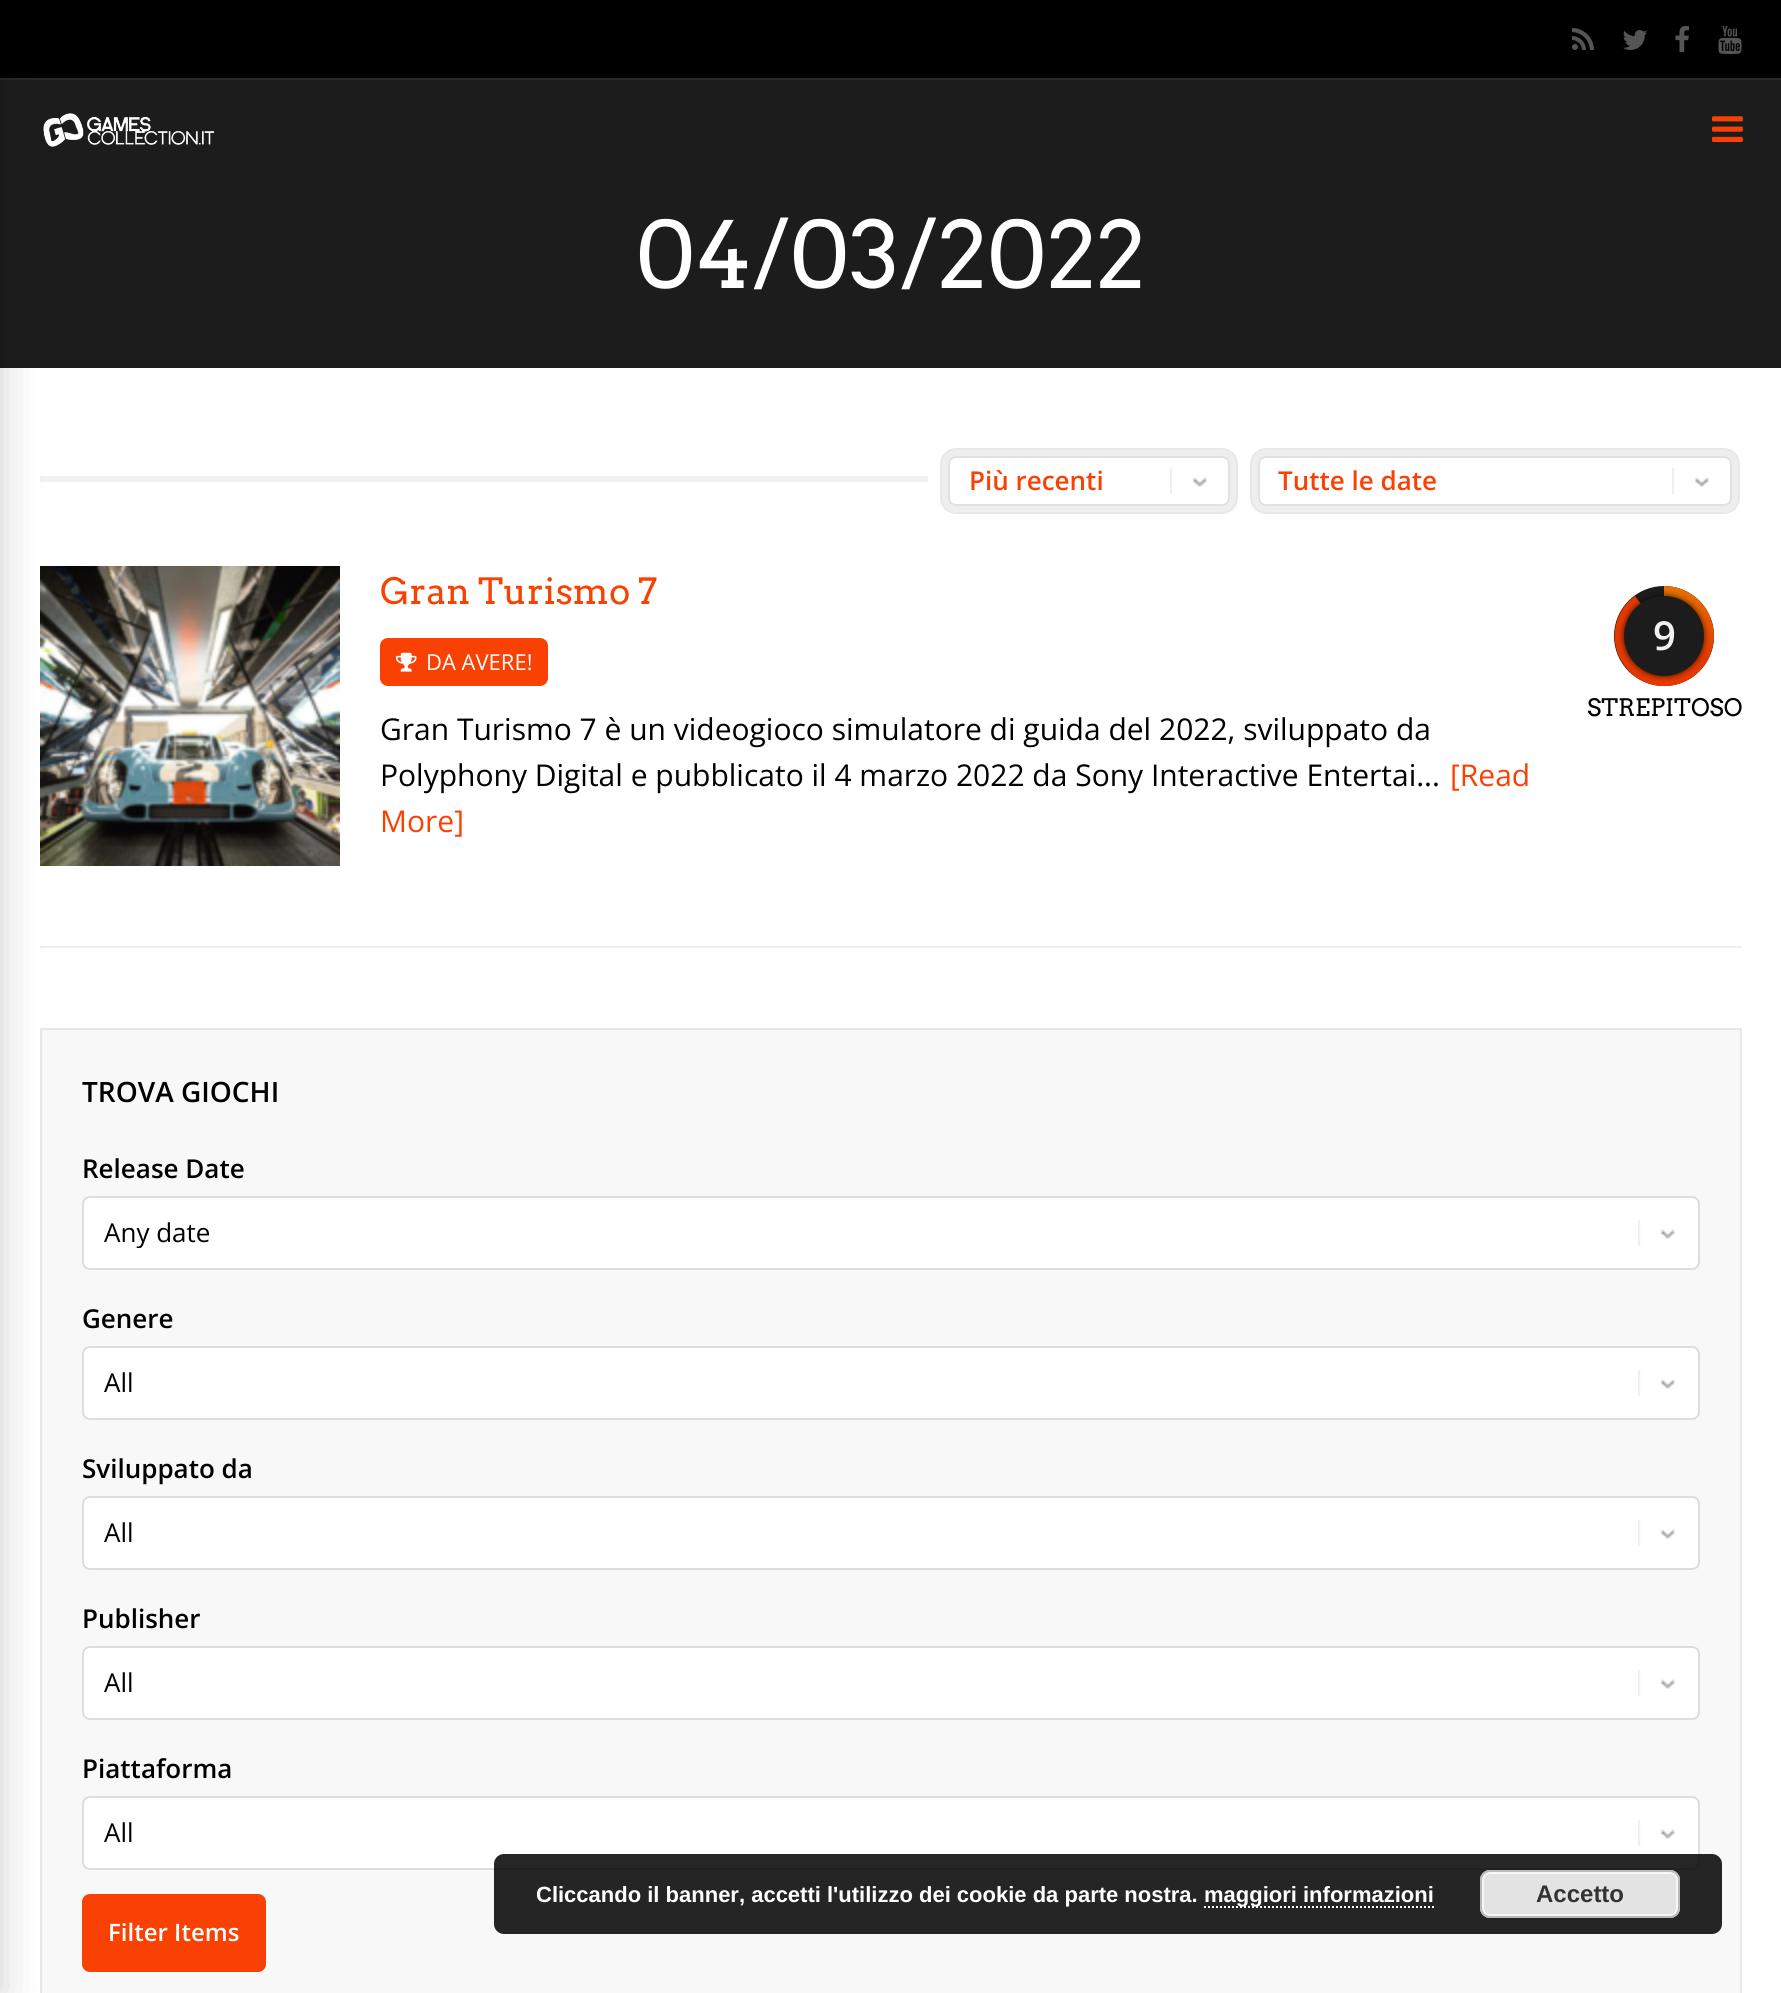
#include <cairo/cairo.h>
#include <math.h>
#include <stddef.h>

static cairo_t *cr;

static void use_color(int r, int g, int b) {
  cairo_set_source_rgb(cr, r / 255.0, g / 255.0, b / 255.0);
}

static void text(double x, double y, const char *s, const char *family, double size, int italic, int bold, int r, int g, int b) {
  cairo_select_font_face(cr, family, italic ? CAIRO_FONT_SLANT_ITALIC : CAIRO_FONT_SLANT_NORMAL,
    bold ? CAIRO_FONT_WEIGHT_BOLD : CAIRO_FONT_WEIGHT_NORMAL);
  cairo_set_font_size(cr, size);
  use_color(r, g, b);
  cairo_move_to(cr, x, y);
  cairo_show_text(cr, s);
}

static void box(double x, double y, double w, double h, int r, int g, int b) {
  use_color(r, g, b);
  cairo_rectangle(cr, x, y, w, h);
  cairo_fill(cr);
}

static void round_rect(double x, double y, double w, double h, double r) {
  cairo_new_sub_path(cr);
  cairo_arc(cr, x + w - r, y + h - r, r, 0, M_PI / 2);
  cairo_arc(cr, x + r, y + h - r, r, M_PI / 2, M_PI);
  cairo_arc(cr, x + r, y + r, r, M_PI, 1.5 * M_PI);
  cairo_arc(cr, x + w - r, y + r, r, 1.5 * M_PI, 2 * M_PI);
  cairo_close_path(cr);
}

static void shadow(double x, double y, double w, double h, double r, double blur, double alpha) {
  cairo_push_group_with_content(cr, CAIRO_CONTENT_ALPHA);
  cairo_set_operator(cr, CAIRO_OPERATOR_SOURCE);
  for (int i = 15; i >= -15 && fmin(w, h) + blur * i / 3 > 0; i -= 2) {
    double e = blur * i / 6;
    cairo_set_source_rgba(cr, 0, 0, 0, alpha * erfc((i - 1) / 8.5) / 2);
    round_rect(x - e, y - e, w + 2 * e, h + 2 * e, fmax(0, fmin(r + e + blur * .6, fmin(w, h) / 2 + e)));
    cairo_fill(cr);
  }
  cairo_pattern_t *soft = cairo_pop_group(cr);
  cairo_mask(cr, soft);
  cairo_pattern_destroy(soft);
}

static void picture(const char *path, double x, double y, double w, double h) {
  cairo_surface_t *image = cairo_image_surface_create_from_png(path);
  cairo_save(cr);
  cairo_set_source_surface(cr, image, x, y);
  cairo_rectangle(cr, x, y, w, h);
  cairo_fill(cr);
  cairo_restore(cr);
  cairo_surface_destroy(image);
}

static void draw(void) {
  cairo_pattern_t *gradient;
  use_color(255, 255, 255);
  cairo_paint(cr);
  box(0, 0, 1781, 78, 0, 0, 0);
  box(0, 78, 1781, 2, 41, 41, 41);
  box(0, 80, 1781, 288, 28, 28, 28);
  picture("img_05.png", 43, 113, 172, 34);
  box(40, 476, 888, 6, 241, 241, 241);
  picture("img_08.png", 40, 566, 300, 300);
  box(40, 946, 1702, 2, 238, 238, 238);
  use_color(248, 248, 248);
  cairo_rectangle(cr, 41, 1029, 1700, 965);
  cairo_fill_preserve(cr);
  use_color(231, 231, 231);
  cairo_stroke(cr);
  use_color(0, 0, 0);
  shadow(-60, 0, 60, 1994, 0, 20, 0.2);
  picture("img_01.png", 1572, 28, 22, 22);
  picture("img_02.png", 1623, 30, 24, 20);
  picture("img_03.png", 1675, 26, 14, 26);
  picture("img_04.png", 1718, 26, 24, 28);
  picture("img_06.png", 1712, 116, 31, 26);
  round_rect(944, 452, 290, 58, 12);
  use_color(232, 232, 232);
  cairo_set_line_width(cr, 8);
  cairo_stroke(cr);
  round_rect(945, 453, 288, 56, 11);
  cairo_set_source_rgba(cr, 1, 1, 1, 0.25);
  cairo_set_line_width(cr, 6);
  cairo_stroke(cr);
  use_color(255, 255, 255);
  round_rect(948, 456, 282, 50, 8);
  cairo_fill(cr);
  picture("img_07.png", 1170, 468, 37, 26);
  round_rect(949, 457, 280, 48, 7);
  cairo_set_source_rgba(cr, 0, 0, 0, 0.12);
  cairo_set_line_width(cr, 2);
  cairo_stroke(cr);
  round_rect(1254, 452, 482, 58, 12);
  use_color(232, 232, 232);
  cairo_set_line_width(cr, 8);
  cairo_stroke(cr);
  round_rect(1255, 453, 480, 56, 11);
  cairo_set_source_rgba(cr, 1, 1, 1, 0.25);
  cairo_set_line_width(cr, 6);
  cairo_stroke(cr);
  use_color(255, 255, 255);
  round_rect(1258, 456, 474, 50, 8);
  cairo_fill(cr);
  picture("img_07.png", 1672, 468, 37, 26);
  round_rect(1259, 457, 472, 48, 7);
  cairo_set_source_rgba(cr, 0, 0, 0, 0.12);
  cairo_set_line_width(cr, 2);
  cairo_stroke(cr);
  use_color(248, 65, 3);
  round_rect(380, 638, 168, 48, 8);
  cairo_fill(cr);
  picture("img_09.png", 396, 652, 21, 20);
  use_color(28, 28, 28);
  cairo_arc(cr, 1664, 636, 50, 0, 2 * M_PI);
  cairo_fill(cr);
  use_color(230, 57, 0);
  cairo_new_path(cr);
  cairo_move_to(cr, 1635, 596);
  cairo_line_to(cr, 1694, 676);
  cairo_curve_to(cr, 1671, 693, 1640, 688, 1624, 665);
  cairo_curve_to(cr, 1608, 643, 1613, 612, 1635, 596);
  cairo_close_path(cr);
  cairo_fill(cr);
  gradient = cairo_pattern_create_linear(1689, 586, 1689, 686);
  cairo_pattern_add_color_stop_rgba(gradient, 0, 0.902, 0.451, 0, 1);
  cairo_pattern_add_color_stop_rgba(gradient, 0.7, 0.902, 0.224, 0, 1);
  cairo_set_source(cr, gradient);
  cairo_pattern_destroy(gradient);
  cairo_new_path(cr);
  cairo_move_to(cr, 1664, 586);
  cairo_curve_to(cr, 1691.5, 586, 1714, 608.5, 1714, 636);
  cairo_curve_to(cr, 1714, 663.5, 1691.5, 686, 1664, 686);
  cairo_close_path(cr);
  cairo_fill(cr);
  use_color(0, 0, 0);
  shadow(1624, 596, 80, 80, 40, 3, 0.75);
  use_color(28, 28, 28);
  cairo_arc(cr, 1664, 636, 40, 0, 2 * M_PI);
  cairo_fill(cr);
  use_color(255, 255, 255);
  round_rect(82, 1196, 1618, 74, 8);
  cairo_fill(cr);
  picture("img_07.png", 1638, 1220, 37, 26);
  round_rect(83, 1197, 1616, 72, 7);
  use_color(221, 221, 221);
  cairo_stroke(cr);
  use_color(255, 255, 255);
  round_rect(82, 1346, 1618, 74, 8);
  cairo_fill(cr);
  picture("img_07.png", 1638, 1370, 37, 26);
  round_rect(83, 1347, 1616, 72, 7);
  use_color(221, 221, 221);
  cairo_stroke(cr);
  use_color(255, 255, 255);
  round_rect(82, 1496, 1618, 74, 8);
  cairo_fill(cr);
  picture("img_07.png", 1638, 1520, 37, 26);
  round_rect(83, 1497, 1616, 72, 7);
  use_color(221, 221, 221);
  cairo_stroke(cr);
  use_color(255, 255, 255);
  round_rect(82, 1646, 1618, 74, 8);
  cairo_fill(cr);
  picture("img_07.png", 1638, 1670, 37, 26);
  round_rect(83, 1647, 1616, 72, 7);
  use_color(221, 221, 221);
  cairo_stroke(cr);
  use_color(255, 255, 255);
  round_rect(82, 1796, 1618, 74, 8);
  cairo_fill(cr);
  picture("img_07.png", 1638, 1820, 37, 26);
  round_rect(83, 1797, 1616, 72, 7);
  use_color(221, 221, 221);
  cairo_stroke(cr);
  use_color(248, 65, 3);
  round_rect(82, 1894, 184, 78, 8);
  cairo_fill(cr);
  cairo_set_source_rgba(cr, 0, 0, 0, 0.85);
  round_rect(494, 1854, 1228, 80, 10);
  cairo_fill(cr);
  cairo_new_path(cr);
  cairo_move_to(cr, 1204, 1907);
  cairo_line_to(cr, 1434, 1907);
  use_color(255, 255, 255);
  cairo_set_dash(cr, (double[]){2, 2}, 2, 0);
  cairo_stroke(cr);
  use_color(227, 227, 227);
  round_rect(1480, 1870, 200, 48, 10);
  cairo_fill(cr);
  round_rect(1483, 1873, 194, 42, 7);
  use_color(246, 246, 246);
  cairo_set_dash(cr, NULL, 0, 0);
  cairo_stroke(cr);
  round_rect(1481, 1871, 198, 46, 9);
  use_color(187, 187, 187);
  cairo_stroke(cr);
  text(636, 288, "04/03/2022", "Arvo", 92, 0, 0, 255, 255, 255);
  text(969, 490, "Più recenti", "Open Sans SemiBold", 26, 0, 0, 248, 65, 3);
  text(1278, 490, "Tutte le date", "Open Sans SemiBold", 26, 0, 0, 248, 65, 3);
  text(380, 604, "Gran Turismo 7", "Arvo", 36, 0, 0, 248, 65, 3);
  text(426, 670, "DA AVERE!", "Open Sans", 22, 0, 0, 255, 255, 255);
  text(380, 740, "Gran Turismo 7 è un videogioco simulatore di guida del 2022, sviluppato da", "Open Sans", 30, 0, 0, 0, 0, 0);
  text(380, 786, "Polyphony Digital e pubblicato il 4 marzo 2022 da Sony Interactive Entertai...", "Open Sans", 30, 0, 0, 0, 0, 0);
  text(1450, 786, "[Read", "Open Sans", 30, 0, 0, 248, 65, 3);
  text(380, 832, "More]", "Open Sans", 30, 0, 0, 248, 65, 3);
  text(1653, 650, "9", "Open Sans SemiBold", 40, 0, 0, 241, 241, 244);
  text(1587, 716, "STREPITOSO", "Arvo", 24, 0, 0, 0, 0, 0);
  text(82, 1102, "TROVA GIOCHI", "Open Sans SemiBold", 28, 0, 0, 0, 0, 0);
  text(82, 1178, "Release Date", "Open Sans SemiBold", 26, 0, 0, 0, 0, 0);
  cairo_save(cr);
  cairo_rectangle(cr, 104, 1218, 1514, 30);
  cairo_clip(cr);
  text(104, 1242, "Any date", "Open Sans", 26, 0, 0, 0, 0, 0);
  cairo_restore(cr);
  text(82, 1328, "Genere", "Open Sans SemiBold", 26, 0, 0, 0, 0, 0);
  text(104, 1392, "All", "Open Sans", 26, 0, 0, 0, 0, 0);
  text(82, 1478, "Sviluppato da", "Open Sans SemiBold", 26, 0, 0, 0, 0, 0);
  text(104, 1542, "All", "Open Sans", 26, 0, 0, 0, 0, 0);
  text(82, 1628, "Publisher", "Open Sans SemiBold", 26, 0, 0, 0, 0, 0);
  text(104, 1692, "All", "Open Sans", 26, 0, 0, 0, 0, 0);
  text(82, 1778, "Piattaforma", "Open Sans SemiBold", 26, 0, 0, 0, 0, 0);
  text(104, 1842, "All", "Open Sans", 26, 0, 0, 0, 0, 0);
  text(108, 1941, "Filter Items", "Open Sans SemiBold", 24, 0, 0, 255, 255, 255);
  text(536, 1902, "Cliccando il banner, accetti l'utilizzo dei cookie da parte nostra.", "Liberation Sans", 22, 0, 1, 255, 255, 255);
  text(1204, 1902, "maggiori informazioni", "Liberation Sans", 22, 0, 1, 255, 255, 255);
  text(1536, 1902, "Accetto", "Liberation Sans", 24, 0, 1, 51, 51, 51);
}

int main(void) {
  cairo_surface_t *surface = cairo_image_surface_create(CAIRO_FORMAT_RGB24, 1781, 1993);
  cr = cairo_create(surface);
  cairo_font_options_t *options = cairo_font_options_create();
  cairo_font_options_set_hint_metrics(options, CAIRO_HINT_METRICS_OFF);
  cairo_font_options_set_hint_style(options, CAIRO_HINT_STYLE_NONE);
  cairo_set_font_options(cr, options);
  cairo_set_miter_limit(cr, 4);
  draw();
  cairo_surface_write_to_png(surface, "out.png");
  cairo_font_options_destroy(options);
  cairo_destroy(cr);
  cairo_surface_destroy(surface);
  return 0;
}
